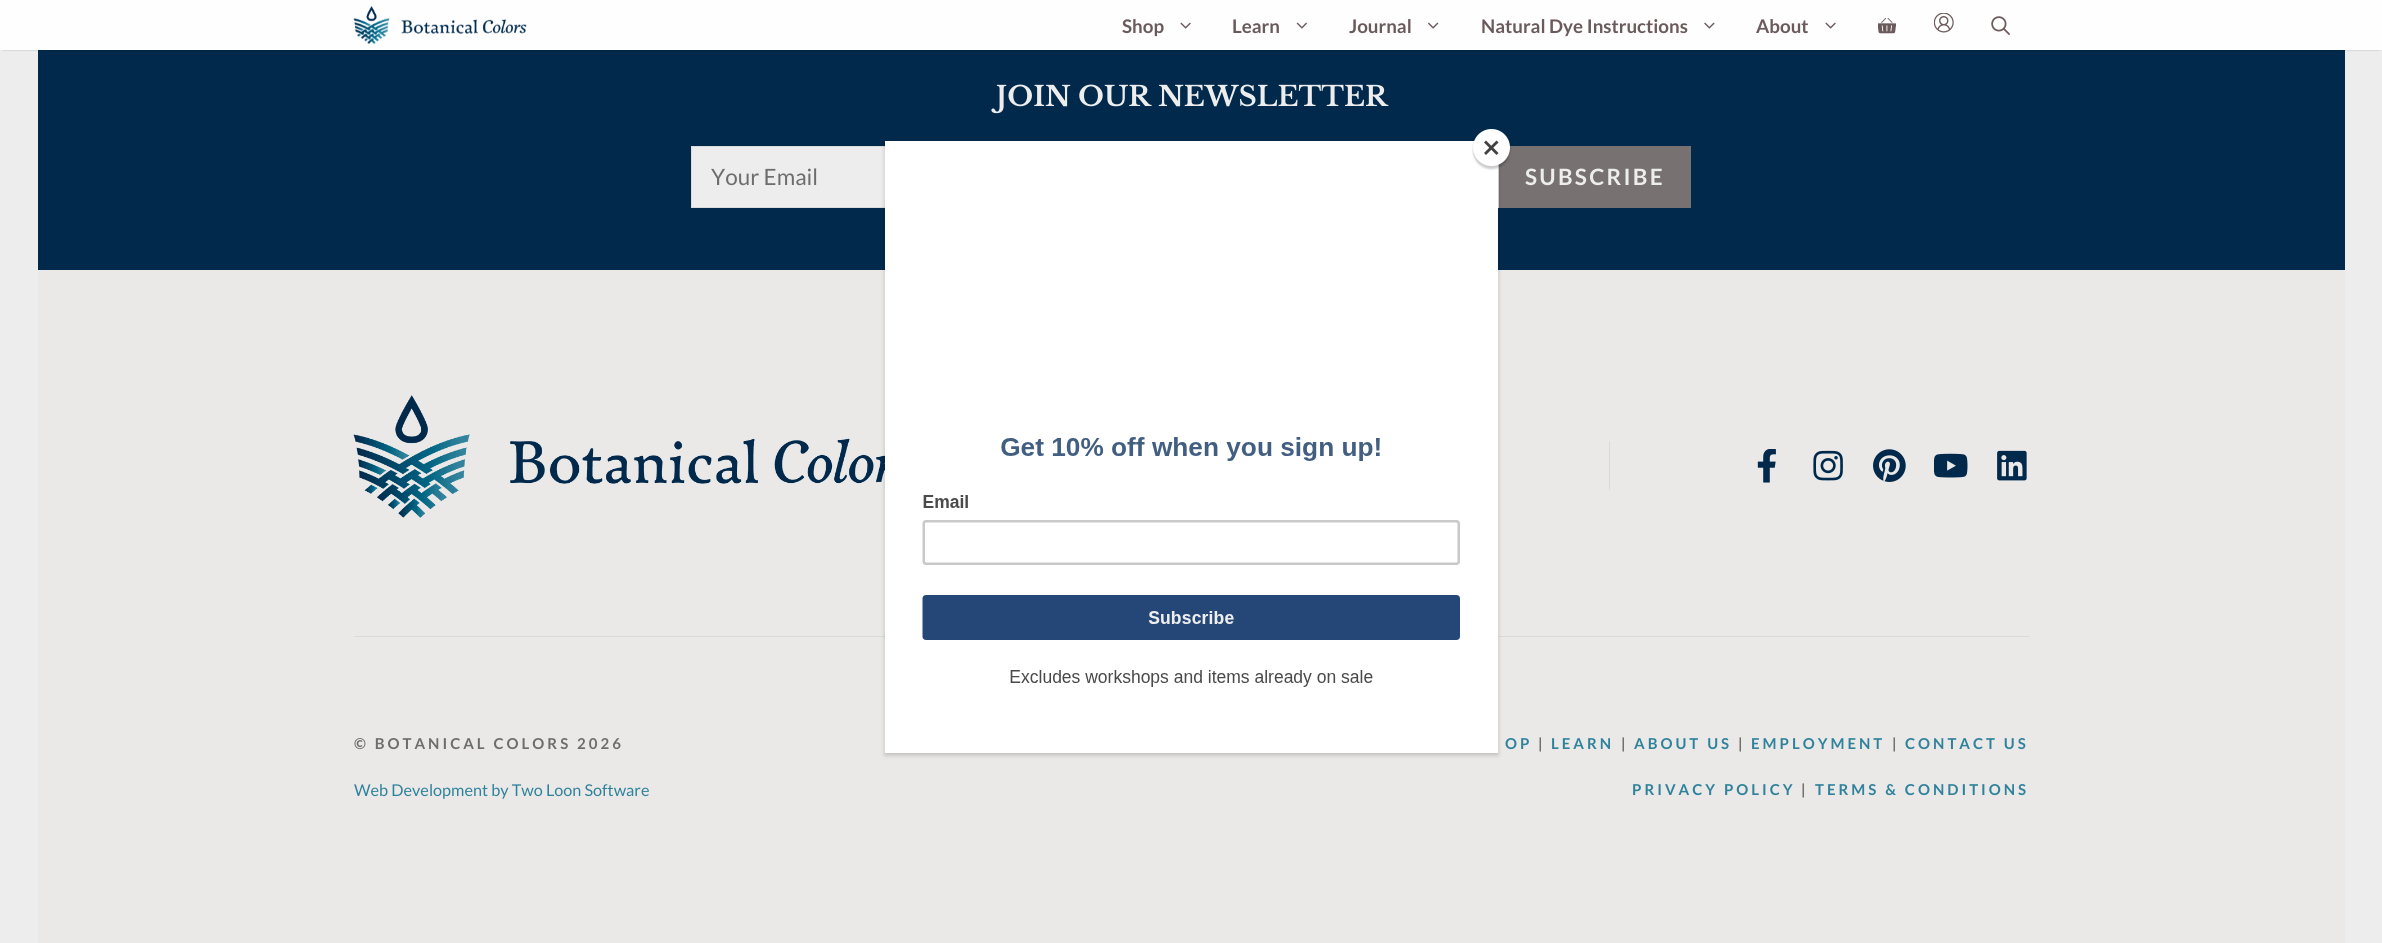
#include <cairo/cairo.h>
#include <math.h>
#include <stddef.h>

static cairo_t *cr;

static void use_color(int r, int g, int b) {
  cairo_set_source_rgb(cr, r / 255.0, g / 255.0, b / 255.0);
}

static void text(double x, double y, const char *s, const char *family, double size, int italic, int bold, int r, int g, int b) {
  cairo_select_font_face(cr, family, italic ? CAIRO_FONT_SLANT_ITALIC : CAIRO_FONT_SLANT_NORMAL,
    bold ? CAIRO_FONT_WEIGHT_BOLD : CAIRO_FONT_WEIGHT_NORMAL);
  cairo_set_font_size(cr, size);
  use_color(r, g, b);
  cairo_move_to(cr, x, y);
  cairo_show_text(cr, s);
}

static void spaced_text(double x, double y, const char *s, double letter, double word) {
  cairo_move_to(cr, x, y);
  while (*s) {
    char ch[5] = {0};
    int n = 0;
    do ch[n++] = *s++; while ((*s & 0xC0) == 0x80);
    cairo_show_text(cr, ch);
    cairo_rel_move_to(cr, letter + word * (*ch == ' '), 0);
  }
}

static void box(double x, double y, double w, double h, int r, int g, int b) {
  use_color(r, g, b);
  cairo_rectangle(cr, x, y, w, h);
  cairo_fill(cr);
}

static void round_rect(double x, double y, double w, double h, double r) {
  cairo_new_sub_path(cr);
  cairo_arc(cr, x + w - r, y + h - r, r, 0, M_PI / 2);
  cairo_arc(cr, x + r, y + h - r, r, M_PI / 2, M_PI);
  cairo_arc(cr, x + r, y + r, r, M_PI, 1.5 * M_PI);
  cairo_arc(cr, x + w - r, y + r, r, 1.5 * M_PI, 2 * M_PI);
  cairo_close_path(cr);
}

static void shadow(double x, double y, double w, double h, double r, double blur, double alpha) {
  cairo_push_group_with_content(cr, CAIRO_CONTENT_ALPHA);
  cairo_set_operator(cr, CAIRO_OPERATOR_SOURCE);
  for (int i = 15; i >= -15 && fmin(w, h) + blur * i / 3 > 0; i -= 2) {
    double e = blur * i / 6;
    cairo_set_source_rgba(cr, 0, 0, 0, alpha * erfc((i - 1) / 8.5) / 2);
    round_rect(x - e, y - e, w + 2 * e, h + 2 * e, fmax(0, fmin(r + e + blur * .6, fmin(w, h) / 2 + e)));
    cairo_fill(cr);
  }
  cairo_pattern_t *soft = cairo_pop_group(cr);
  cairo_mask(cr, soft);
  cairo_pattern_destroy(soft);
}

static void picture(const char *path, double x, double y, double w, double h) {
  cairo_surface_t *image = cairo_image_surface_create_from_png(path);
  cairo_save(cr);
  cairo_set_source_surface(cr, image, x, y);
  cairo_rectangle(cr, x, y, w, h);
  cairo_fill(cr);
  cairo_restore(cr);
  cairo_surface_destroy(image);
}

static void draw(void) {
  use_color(237, 237, 237);
  cairo_paint(cr);
  box(38, 50, 2307, 220, 0, 41, 75);
  use_color(0, 0, 0);
  shadow(3, 5, 2377, 45, 0, 1, 0.2);
  box(0, 0, 2382, 50, 254, 254, 254);
  picture("img_01.png", 353, 6, 174, 38);
  picture("img_02.png", 1180, 22, 11, 7);
  picture("img_03.png", 1296, 22, 11, 7);
  picture("img_04.png", 1428, 22, 11, 7);
  picture("img_05.png", 1704, 22, 11, 7);
  picture("img_02.png", 1825, 22, 11, 7);
  picture("img_06.png", 1878, 18, 18, 16);
  picture("img_07.png", 1934, 13, 20, 20);
  picture("img_08.png", 1991, 16, 19, 19);
  box(692, 147, 193, 60, 237, 237, 237);
  cairo_rectangle(cr, 691.5, 146.5, 807, 61);
  use_color(220, 219, 219);
  cairo_set_line_width(cr, 1);
  cairo_stroke(cr);
  box(1499, 146, 192, 62, 119, 113, 113);
  box(38, 270, 2307, 673, 234, 233, 232);
  picture("img_10.png", 353, 395, 532, 123);
  box(354, 636, 1675, 1, 220, 219, 219);
  use_color(0, 0, 0);
  shadow(885, 144, 613, 611, 0, 2.5, 0.2);
  picture("img_09.png", 885, 141, 613, 612);
  shadow(1473, 131, 37, 38, 18.5, 1, 0.2);
  use_color(255, 255, 255);
  cairo_arc(cr, 1491.5, 147.5, 18.5, 0, 2 * M_PI);
  cairo_fill(cr);
  use_color(65, 65, 65);
  cairo_new_path(cr);
  cairo_move_to(cr, 1496.5, 140.5);
  cairo_line_to(cr, 1498.5, 142.5);
  cairo_line_to(cr, 1486, 155);
  cairo_line_to(cr, 1484, 153);
  cairo_close_path(cr);
  cairo_fill(cr);
  cairo_new_path(cr);
  cairo_move_to(cr, 1484, 142.5);
  cairo_line_to(cr, 1486, 140.5);
  cairo_line_to(cr, 1498.5, 153);
  cairo_line_to(cr, 1496.5, 155);
  cairo_close_path(cr);
  cairo_fill(cr);
  box(1609, 441, 1, 49, 220, 219, 219);
  picture("img_11.png", 1757, 449, 19, 34);
  picture("img_12.png", 1813, 450, 30, 31);
  picture("img_13.png", 1873, 449, 33, 33);
  picture("img_14.png", 1934, 453, 34, 25);
  picture("img_15.png", 1997, 450, 30, 31);
  text(1122, 33, "Shop", "Lato", 18.75, 0, 1, 107, 90, 91);
  text(1232, 33, "Learn", "Lato", 18.75, 0, 1, 107, 90, 91);
  text(1349, 33, "Journal", "Lato", 18.75, 0, 1, 107, 90, 91);
  text(1481, 33, "Natural Dye Instructions", "Lato", 18.75, 0, 1, 107, 90, 91);
  text(1756, 33, "About", "Lato", 18.75, 0, 1, 107, 90, 91);
  text(996, 106, "JOIN OUR NEWSLETTER", "Libre Baskerville", 27.5, 0, 1, 237, 237, 237);
  text(711, 185, "Your Email", "Lato", 22.5, 0, 0, 109, 109, 109);
  cairo_select_font_face(cr, "Lato", CAIRO_FONT_SLANT_NORMAL, CAIRO_FONT_WEIGHT_BOLD);
  use_color(237, 237, 237);
  spaced_text(1525, 185, "SUBSCRIBE", 2.25, 0);
  cairo_set_font_size(cr, 15);
  use_color(109, 109, 109);
  spaced_text(354, 749, "© BOTANICAL COLORS 2026", 3, 0);
  text(354, 796, "Web Development by Two Loon Software", "Lato", 16.25, 0, 0, 47, 130, 155);
  cairo_select_font_face(cr, "Lato", CAIRO_FONT_SLANT_NORMAL, CAIRO_FONT_WEIGHT_BOLD);
  cairo_set_font_size(cr, 15);
  spaced_text(1505, 749, "OP", 3, 0);
  use_color(109, 109, 109);
  spaced_text(1538, 749, "|", 3, 0);
  use_color(47, 130, 155);
  spaced_text(1551, 749, "LEARN", 3, 0);
  use_color(109, 109, 109);
  spaced_text(1621, 749, "|", 3, 0);
  use_color(47, 130, 155);
  spaced_text(1634, 749, "ABOUT US", 3, 0);
  use_color(109, 109, 109);
  spaced_text(1738, 749, "|", 3, 0);
  use_color(47, 130, 155);
  spaced_text(1751, 749, "EMPLOYMENT", 3, 0);
  use_color(109, 109, 109);
  spaced_text(1892, 749, "|", 3, 0);
  use_color(47, 130, 155);
  spaced_text(1905, 749, "CONTACT US", 3, 0);
  spaced_text(1632, 795, "PRIVACY POLICY", 3, 0);
  use_color(109, 109, 109);
  spaced_text(1801, 795, "|", 3, 0);
  use_color(47, 130, 155);
  spaced_text(1815, 795, "TERMS & CONDITIONS", 3, 0);
}

int main(void) {
  cairo_surface_t *surface = cairo_image_surface_create(CAIRO_FORMAT_RGB24, 2382, 943);
  cr = cairo_create(surface);
  cairo_font_options_t *options = cairo_font_options_create();
  cairo_font_options_set_hint_metrics(options, CAIRO_HINT_METRICS_OFF);
  cairo_font_options_set_hint_style(options, CAIRO_HINT_STYLE_NONE);
  cairo_set_font_options(cr, options);
  cairo_set_miter_limit(cr, 4);
  draw();
  cairo_surface_write_to_png(surface, "out.png");
  cairo_font_options_destroy(options);
  cairo_destroy(cr);
  cairo_surface_destroy(surface);
  return 0;
}
